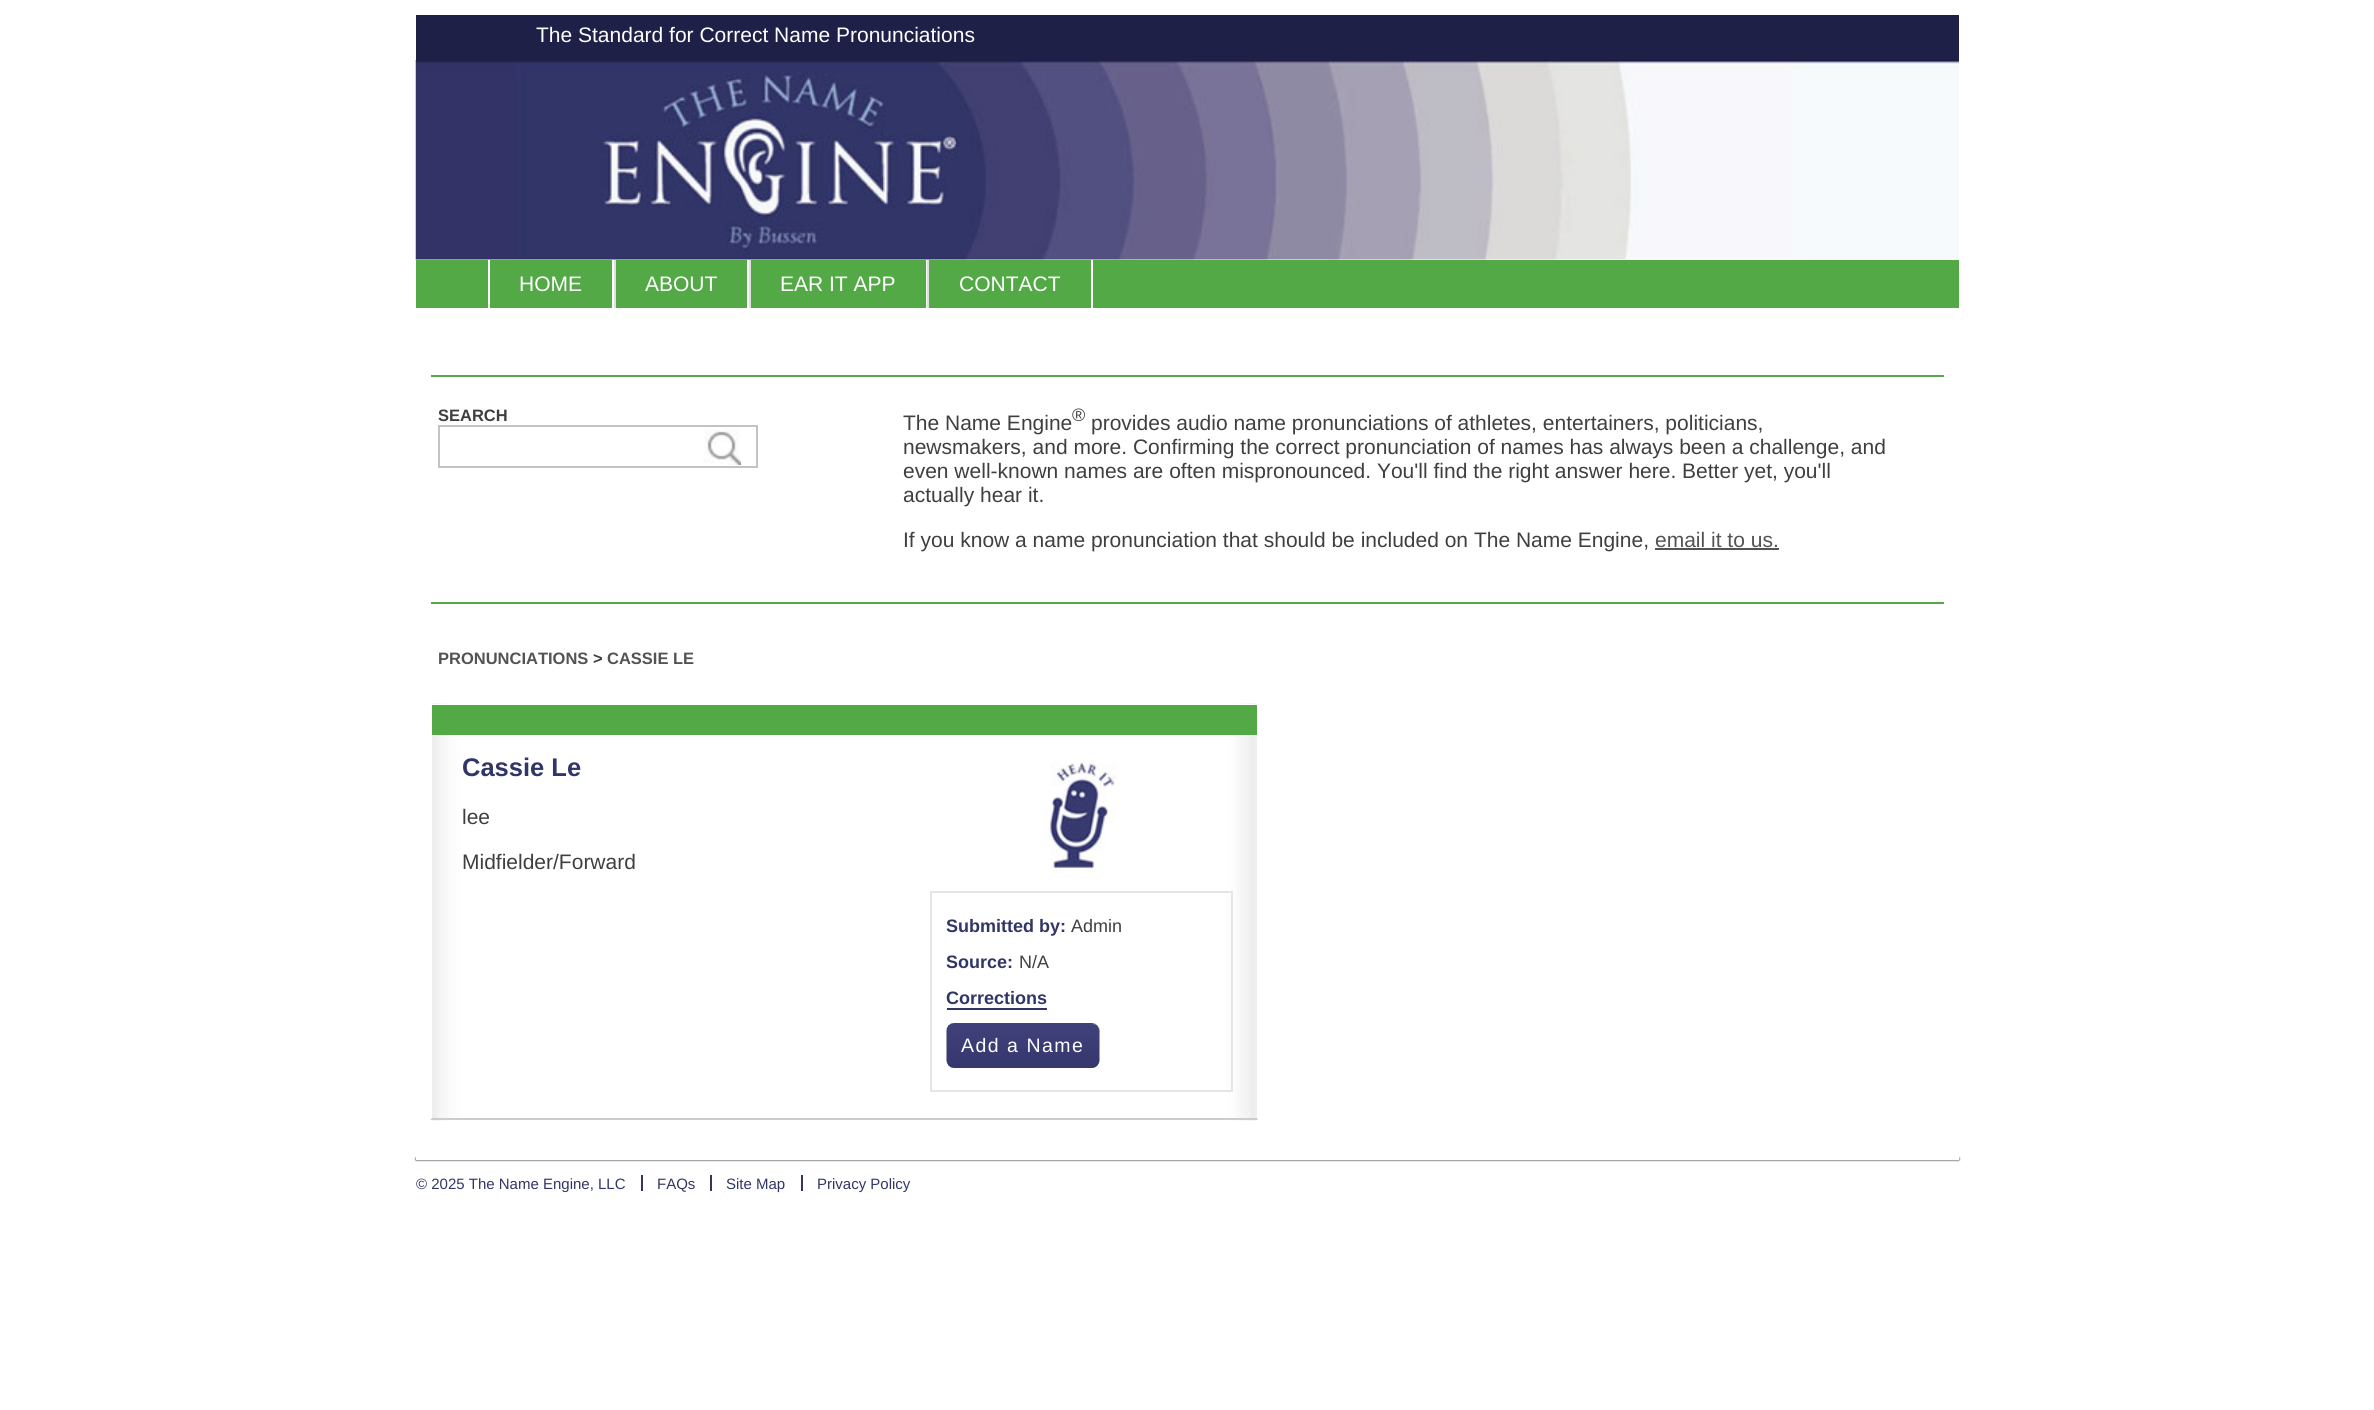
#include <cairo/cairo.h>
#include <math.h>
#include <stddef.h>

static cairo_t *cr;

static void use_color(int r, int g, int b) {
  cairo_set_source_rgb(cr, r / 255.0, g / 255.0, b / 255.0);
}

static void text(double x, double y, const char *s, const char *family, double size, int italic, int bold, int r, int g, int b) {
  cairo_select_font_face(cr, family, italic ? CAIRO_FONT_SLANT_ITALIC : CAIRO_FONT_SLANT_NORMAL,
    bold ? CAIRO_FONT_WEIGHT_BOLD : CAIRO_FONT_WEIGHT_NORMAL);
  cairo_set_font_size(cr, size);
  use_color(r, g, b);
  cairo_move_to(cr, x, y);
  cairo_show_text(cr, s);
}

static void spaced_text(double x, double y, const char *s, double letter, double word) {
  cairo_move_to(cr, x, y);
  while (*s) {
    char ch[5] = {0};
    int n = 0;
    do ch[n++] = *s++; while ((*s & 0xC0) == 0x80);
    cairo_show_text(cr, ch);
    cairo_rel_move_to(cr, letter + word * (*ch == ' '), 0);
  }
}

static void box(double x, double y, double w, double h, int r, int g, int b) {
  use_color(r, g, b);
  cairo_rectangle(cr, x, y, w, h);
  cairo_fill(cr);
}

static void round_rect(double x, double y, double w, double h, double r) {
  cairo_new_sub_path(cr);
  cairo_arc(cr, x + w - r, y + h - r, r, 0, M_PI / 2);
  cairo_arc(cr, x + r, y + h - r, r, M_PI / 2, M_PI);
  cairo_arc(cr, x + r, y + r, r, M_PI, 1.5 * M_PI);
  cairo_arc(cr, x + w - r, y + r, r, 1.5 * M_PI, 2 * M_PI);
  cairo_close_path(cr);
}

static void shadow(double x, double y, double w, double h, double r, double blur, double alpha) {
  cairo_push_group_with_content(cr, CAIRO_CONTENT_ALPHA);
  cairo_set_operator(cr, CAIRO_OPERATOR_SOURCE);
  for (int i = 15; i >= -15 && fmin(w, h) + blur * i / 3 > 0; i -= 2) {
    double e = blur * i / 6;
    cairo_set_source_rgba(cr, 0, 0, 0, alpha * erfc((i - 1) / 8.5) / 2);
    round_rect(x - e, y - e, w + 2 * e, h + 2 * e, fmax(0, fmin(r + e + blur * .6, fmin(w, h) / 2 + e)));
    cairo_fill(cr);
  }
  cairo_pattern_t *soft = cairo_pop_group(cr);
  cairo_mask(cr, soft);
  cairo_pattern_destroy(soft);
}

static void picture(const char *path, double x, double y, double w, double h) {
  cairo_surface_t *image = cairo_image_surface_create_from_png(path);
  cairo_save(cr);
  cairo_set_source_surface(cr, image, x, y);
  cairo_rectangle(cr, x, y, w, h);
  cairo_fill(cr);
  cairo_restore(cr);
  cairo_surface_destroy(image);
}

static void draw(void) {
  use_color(255, 255, 255);
  cairo_paint(cr);
  box(416, 15, 1543, 45, 31, 32, 71);
  picture("img_01.png", 415, 60, 1544, 200);
  box(416, 260, 1543, 48, 83, 169, 70);
  box(612, 260, 2, 48, 255, 255, 255);
  box(488, 260, 2, 48, 255, 255, 255);
  box(747, 260, 2, 48, 255, 255, 255);
  box(614, 260, 2, 48, 224, 224, 224);
  box(926, 260, 1, 48, 255, 255, 255);
  box(749, 260, 2, 48, 224, 224, 224);
  box(1091, 260, 2, 48, 255, 255, 255);
  box(927, 260, 2, 48, 224, 224, 224);
  box(431, 375, 1513, 2, 83, 169, 70);
  box(431, 602, 1513, 2, 83, 169, 70);
  cairo_rectangle(cr, 439, 426, 318, 41);
  use_color(195, 195, 195);
  cairo_stroke(cr);
  picture("img_02.png", 703, 429, 38, 36);
  box(1655, 548, 124, 2, 83, 83, 83);
  picture("img_03.png", 432, 703, 825, 418);
  box(431, 704, 828, 2, 255, 255, 255);
  use_color(204, 204, 204);
  cairo_new_path(cr);
  cairo_move_to(cr, 1258, 1120);
  cairo_line_to(cr, 430, 1120);
  cairo_line_to(cr, 432, 1118);
  cairo_line_to(cr, 1257, 1118);
  cairo_close_path(cr);
  cairo_fill(cr);
  use_color(255, 255, 255);
  cairo_new_path(cr);
  cairo_move_to(cr, 430, 1120);
  cairo_line_to(cr, 430, 704);
  cairo_line_to(cr, 432, 705);
  cairo_line_to(cr, 432, 1118);
  cairo_close_path(cr);
  cairo_fill(cr);
  box(432, 705, 825, 30, 83, 169, 70);
  picture("img_04.png", 1041, 759, 76, 114);
  cairo_rectangle(cr, 931, 892, 301, 199);
  use_color(230, 229, 229);
  cairo_stroke(cr);
  box(947, 1008, 100, 2, 49, 54, 104);
  picture("img_05.png", 946, 1023, 154, 45);
  use_color(0, 0, 0);
  shadow(416, 1158, 1543, 2, 0, 1, 1);
  box(416, 1156, 1543, 4, 255, 255, 255);
  box(641, 1175, 2, 16, 49, 54, 104);
  box(710, 1175, 2, 16, 49, 54, 104);
  box(801, 1175, 2, 16, 49, 54, 104);
  text(536, 42, "The Standard for Correct Name Pronunciations", "Liberation Sans", 21, 0, 0, 255, 255, 255);
  text(519, 291, "HOME", "Liberation Sans", 21, 0, 0, 255, 255, 255);
  text(645, 291, "ABOUT", "Liberation Sans", 21, 0, 0, 255, 255, 255);
  text(780, 291, "EAR IT APP", "Liberation Sans", 21, 0, 0, 255, 255, 255);
  text(959, 291, "CONTACT", "Liberation Sans", 21, 0, 0, 255, 255, 255);
  text(438, 421, "SEARCH", "Liberation Sans", 16.5, 0, 1, 63, 63, 63);
  text(903, 430, "The Name Engine", "Liberation Sans", 21, 0, 0, 63, 63, 63);
  text(1072, 421, "®", "Liberation Sans", 18, 0, 0, 63, 63, 63);
  text(1091, 430, "provides audio name pronunciations of athletes, entertainers, politicians,", "Liberation Sans", 21, 0, 0, 63, 63, 63);
  text(903, 454, "newsmakers, and more. Confirming the correct pronunciation of names has always been a challenge, and", "Liberation Sans", 21, 0, 0, 63, 63, 63);
  text(903, 478, "even well-known names are often mispronounced. You'll find the right answer here. Better yet, you'll", "Liberation Sans", 21, 0, 0, 63, 63, 63);
  text(903, 502, "actually hear it.", "Liberation Sans", 21, 0, 0, 63, 63, 63);
  text(903, 547, "If you know a name pronunciation that should be included on The Name Engine,", "Liberation Sans", 21, 0, 0, 63, 63, 63);
  text(1655, 547, "email it to us.", "Liberation Sans", 21, 0, 0, 83, 83, 83);
  text(438, 664, "PRONUNCIATIONS", "Liberation Sans", 16.5, 0, 1, 83, 83, 83);
  text(593, 664, ">", "Liberation Sans", 16.5, 0, 1, 63, 63, 63);
  text(607, 664, "CASSIE LE", "Liberation Sans", 16.5, 0, 1, 83, 83, 83);
  text(462, 776, "Cassie Le", "Liberation Sans", 25.5, 0, 1, 49, 54, 104);
  text(462, 824, "lee", "Liberation Sans", 21, 0, 0, 63, 63, 63);
  text(462, 869, "Midfielder/Forward", "Liberation Sans", 21, 0, 0, 63, 63, 63);
  text(946, 932, "Submitted by:", "Liberation Sans", 18, 0, 1, 49, 54, 104);
  text(1071, 932, "Admin", "Liberation Sans", 18, 0, 0, 63, 63, 63);
  text(946, 968, "Source:", "Liberation Sans", 18, 0, 1, 49, 54, 104);
  text(1019, 968, "N/A", "Liberation Sans", 18, 0, 0, 63, 63, 63);
  text(946, 1004, "Corrections", "Liberation Sans", 18, 0, 1, 49, 54, 104);
  cairo_select_font_face(cr, "Liberation Sans", CAIRO_FONT_SLANT_NORMAL, CAIRO_FONT_WEIGHT_NORMAL);
  cairo_set_font_size(cr, 19.5);
  use_color(255, 255, 255);
  spaced_text(961, 1052, "Add a Name", 1.5, 0);
  text(416, 1189, "© 2025 The Name Engine, LLC", "Liberation Sans", 15, 0, 0, 49, 54, 104);
  text(657, 1189, "FAQs", "Liberation Sans", 15, 0, 0, 49, 54, 104);
  text(726, 1189, "Site Map", "Liberation Sans", 15, 0, 0, 49, 54, 104);
  text(817, 1189, "Privacy Policy", "Liberation Sans", 15, 0, 0, 49, 54, 104);
}

int main(void) {
  cairo_surface_t *surface = cairo_image_surface_create(CAIRO_FORMAT_RGB24, 2374, 1410);
  cr = cairo_create(surface);
  cairo_font_options_t *options = cairo_font_options_create();
  cairo_font_options_set_hint_metrics(options, CAIRO_HINT_METRICS_OFF);
  cairo_font_options_set_hint_style(options, CAIRO_HINT_STYLE_NONE);
  cairo_set_font_options(cr, options);
  cairo_set_miter_limit(cr, 4);
  draw();
  cairo_surface_write_to_png(surface, "out.png");
  cairo_font_options_destroy(options);
  cairo_destroy(cr);
  cairo_surface_destroy(surface);
  return 0;
}
